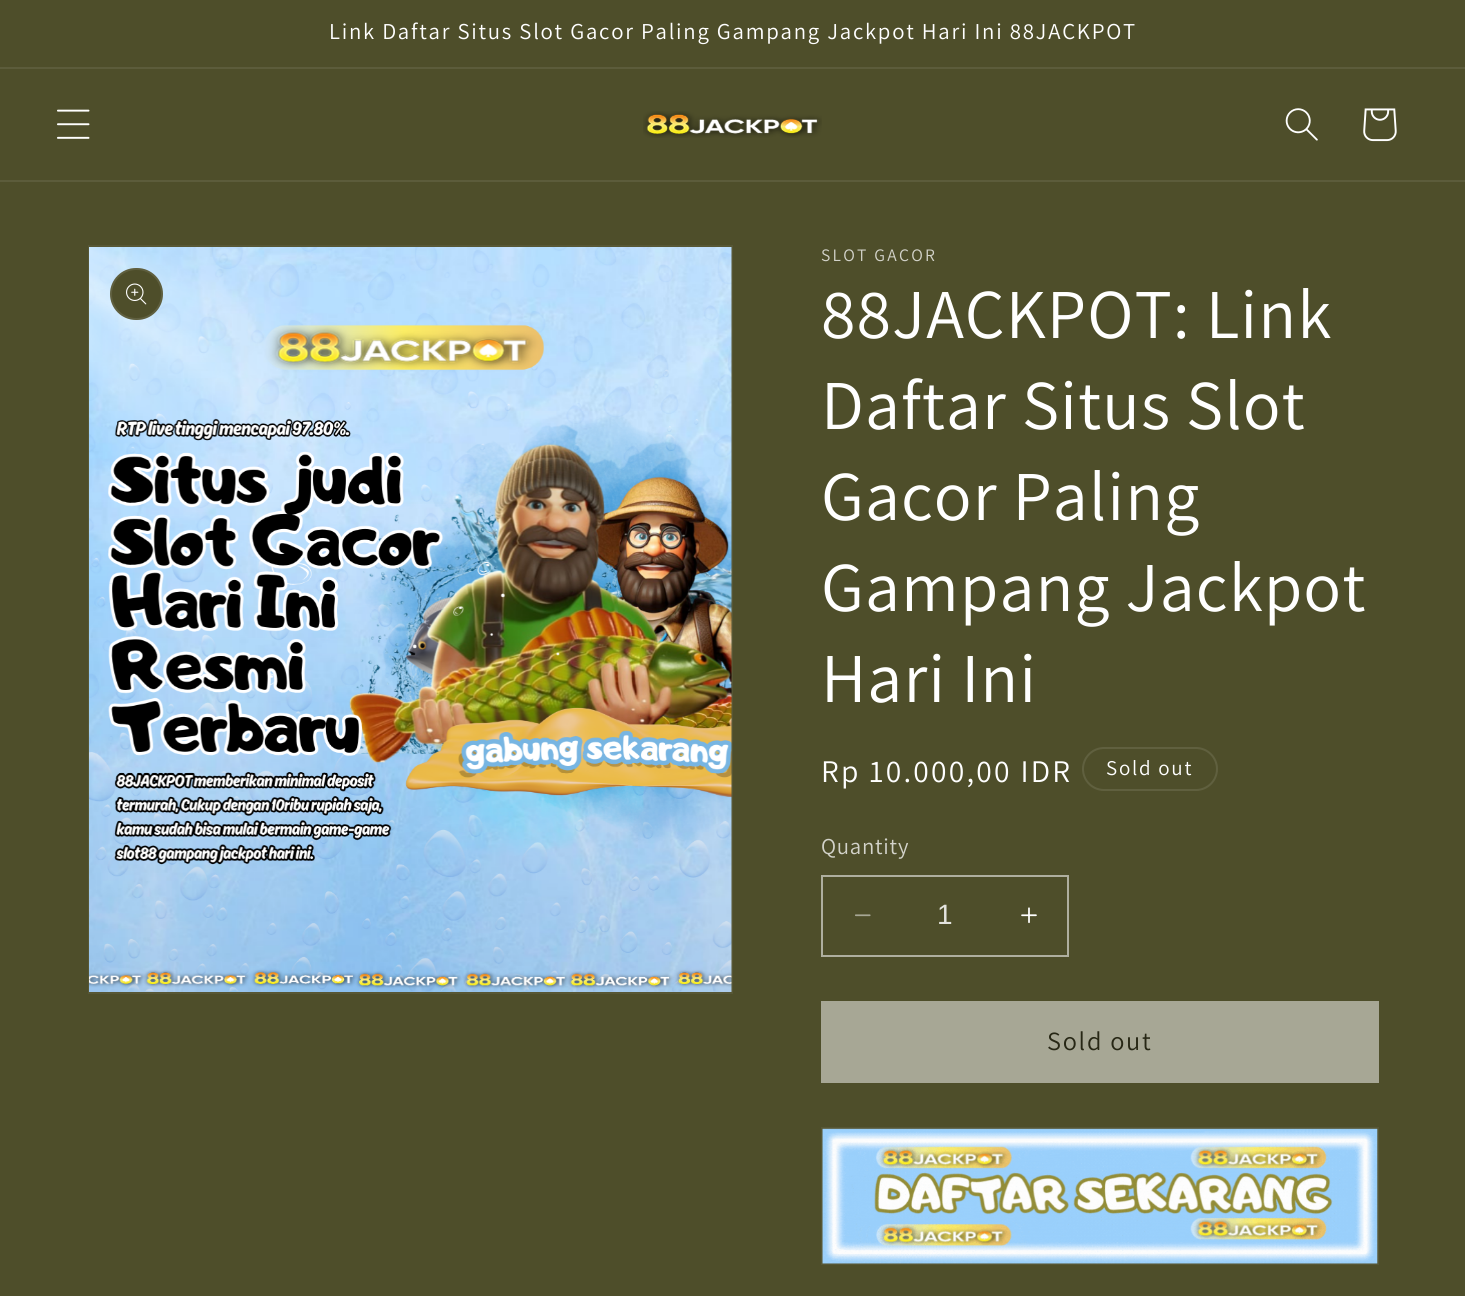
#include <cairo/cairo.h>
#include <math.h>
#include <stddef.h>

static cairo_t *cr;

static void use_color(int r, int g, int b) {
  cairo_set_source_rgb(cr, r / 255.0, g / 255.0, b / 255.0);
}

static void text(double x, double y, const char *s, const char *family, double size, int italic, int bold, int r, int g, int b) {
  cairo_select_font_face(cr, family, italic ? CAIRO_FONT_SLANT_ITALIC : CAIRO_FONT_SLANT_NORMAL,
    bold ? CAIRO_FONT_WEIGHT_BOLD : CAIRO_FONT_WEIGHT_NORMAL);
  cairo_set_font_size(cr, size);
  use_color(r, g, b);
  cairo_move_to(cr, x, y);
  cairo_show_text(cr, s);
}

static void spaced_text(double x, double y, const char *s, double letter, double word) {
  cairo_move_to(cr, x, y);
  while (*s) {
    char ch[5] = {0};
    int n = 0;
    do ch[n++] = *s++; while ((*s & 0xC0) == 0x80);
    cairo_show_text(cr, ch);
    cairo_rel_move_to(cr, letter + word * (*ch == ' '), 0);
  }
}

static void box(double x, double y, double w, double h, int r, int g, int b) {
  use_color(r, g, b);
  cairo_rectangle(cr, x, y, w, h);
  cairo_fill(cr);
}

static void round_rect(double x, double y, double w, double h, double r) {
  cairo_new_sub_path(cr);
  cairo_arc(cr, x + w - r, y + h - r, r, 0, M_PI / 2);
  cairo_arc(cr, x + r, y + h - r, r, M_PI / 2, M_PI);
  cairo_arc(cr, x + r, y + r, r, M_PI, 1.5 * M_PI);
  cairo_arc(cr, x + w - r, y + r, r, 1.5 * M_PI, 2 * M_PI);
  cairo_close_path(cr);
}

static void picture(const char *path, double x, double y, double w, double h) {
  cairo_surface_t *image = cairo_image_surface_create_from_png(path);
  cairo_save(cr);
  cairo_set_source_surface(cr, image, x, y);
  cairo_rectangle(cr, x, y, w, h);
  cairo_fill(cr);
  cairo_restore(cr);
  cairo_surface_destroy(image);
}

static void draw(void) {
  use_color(78, 78, 42);
  cairo_paint(cr);
  box(0, 67, 1465, 2, 92, 92, 59);
  box(0, 180, 1465, 2, 92, 92, 59);
  picture("img_01.png", 57, 109, 33, 30);
  picture("img_02.png", 643, 111, 179, 27);
  picture("img_03.png", 1285, 108, 33, 33);
  picture("img_04.png", 1363, 108, 34, 34);
  cairo_rectangle(cr, 89, 246, 643, 747);
  use_color(87, 87, 53);
  cairo_stroke(cr);
  picture("img_05.png", 89, 247, 643, 745);
  use_color(78, 78, 42);
  round_rect(110, 268, 53, 52, 26);
  cairo_fill(cr);
  round_rect(111, 269, 51, 50, 25);
  cairo_set_source_rgba(cr, 1, 1, 1, 0.1);
  cairo_stroke(cr);
  picture("img_06.png", 126, 283, 21, 22);
  round_rect(1083, 748, 134, 42, 21);
  use_color(96, 96, 63);
  cairo_stroke(cr);
  picture("img_07.png", 855, 914, 16, 3);
  picture("img_08.png", 1021, 907, 16, 17);
  cairo_rectangle(cr, 822, 876, 246, 80);
  use_color(175, 175, 159);
  cairo_stroke(cr);
  box(821, 1001, 558, 82, 167, 167, 149);
  cairo_rectangle(cr, 822, 1128, 556, 136);
  use_color(87, 87, 53);
  cairo_stroke(cr);
  picture("img_09.png", 822, 1128, 556, 136);
  cairo_select_font_face(cr, "Assistant", CAIRO_FONT_SLANT_NORMAL, CAIRO_FONT_WEIGHT_NORMAL);
  cairo_set_font_size(cr, 22.75);
  use_color(255, 255, 255);
  spaced_text(329, 39, "Link Daftar Situs Slot Gacor Paling Gampang Jackpot Hari Ini 88JACKPOT", 1.75, 0);
  cairo_set_font_size(cr, 17.5);
  use_color(211, 211, 202);
  spaced_text(821, 261, "SLOT GACOR", 2.25, 0);
  cairo_set_font_size(cr, 70);
  use_color(255, 255, 255);
  spaced_text(821, 338, "88JACKPOT: Link", 1, 0);
  spaced_text(821, 429, "Daftar Situs Slot", 1, 0);
  spaced_text(821, 520, "Gacor Paling", 1, 0);
  spaced_text(821, 611, "Gampang Jackpot", 1, 0);
  spaced_text(821, 702, "Hari Ini", 1, 0);
  cairo_set_font_size(cr, 31.5);
  spaced_text(821, 782, "Rp 10.000,00 IDR", 2.25, 0);
  cairo_set_font_size(cr, 21);
  spaced_text(1106, 775, "Sold out", 1.75, 0);
  cairo_set_font_size(cr, 22.75);
  use_color(211, 211, 202);
  spaced_text(821, 854, "Quantity", 0.75, 0);
  text(937, 924, "1", "Liberation Sans", 28, 0, 0, 228, 228, 223);
  cairo_select_font_face(cr, "Assistant", CAIRO_FONT_SLANT_NORMAL, CAIRO_FONT_WEIGHT_NORMAL);
  cairo_set_font_size(cr, 26.25);
  use_color(39, 39, 21);
  spaced_text(1047, 1050, "Sold out", 1.75, 0);
}

int main(void) {
  cairo_surface_t *surface = cairo_image_surface_create(CAIRO_FORMAT_RGB24, 1465, 1296);
  cr = cairo_create(surface);
  cairo_font_options_t *options = cairo_font_options_create();
  cairo_font_options_set_hint_metrics(options, CAIRO_HINT_METRICS_OFF);
  cairo_font_options_set_hint_style(options, CAIRO_HINT_STYLE_NONE);
  cairo_set_font_options(cr, options);
  cairo_set_miter_limit(cr, 4);
  draw();
  cairo_surface_write_to_png(surface, "out.png");
  cairo_font_options_destroy(options);
  cairo_destroy(cr);
  cairo_surface_destroy(surface);
  return 0;
}
